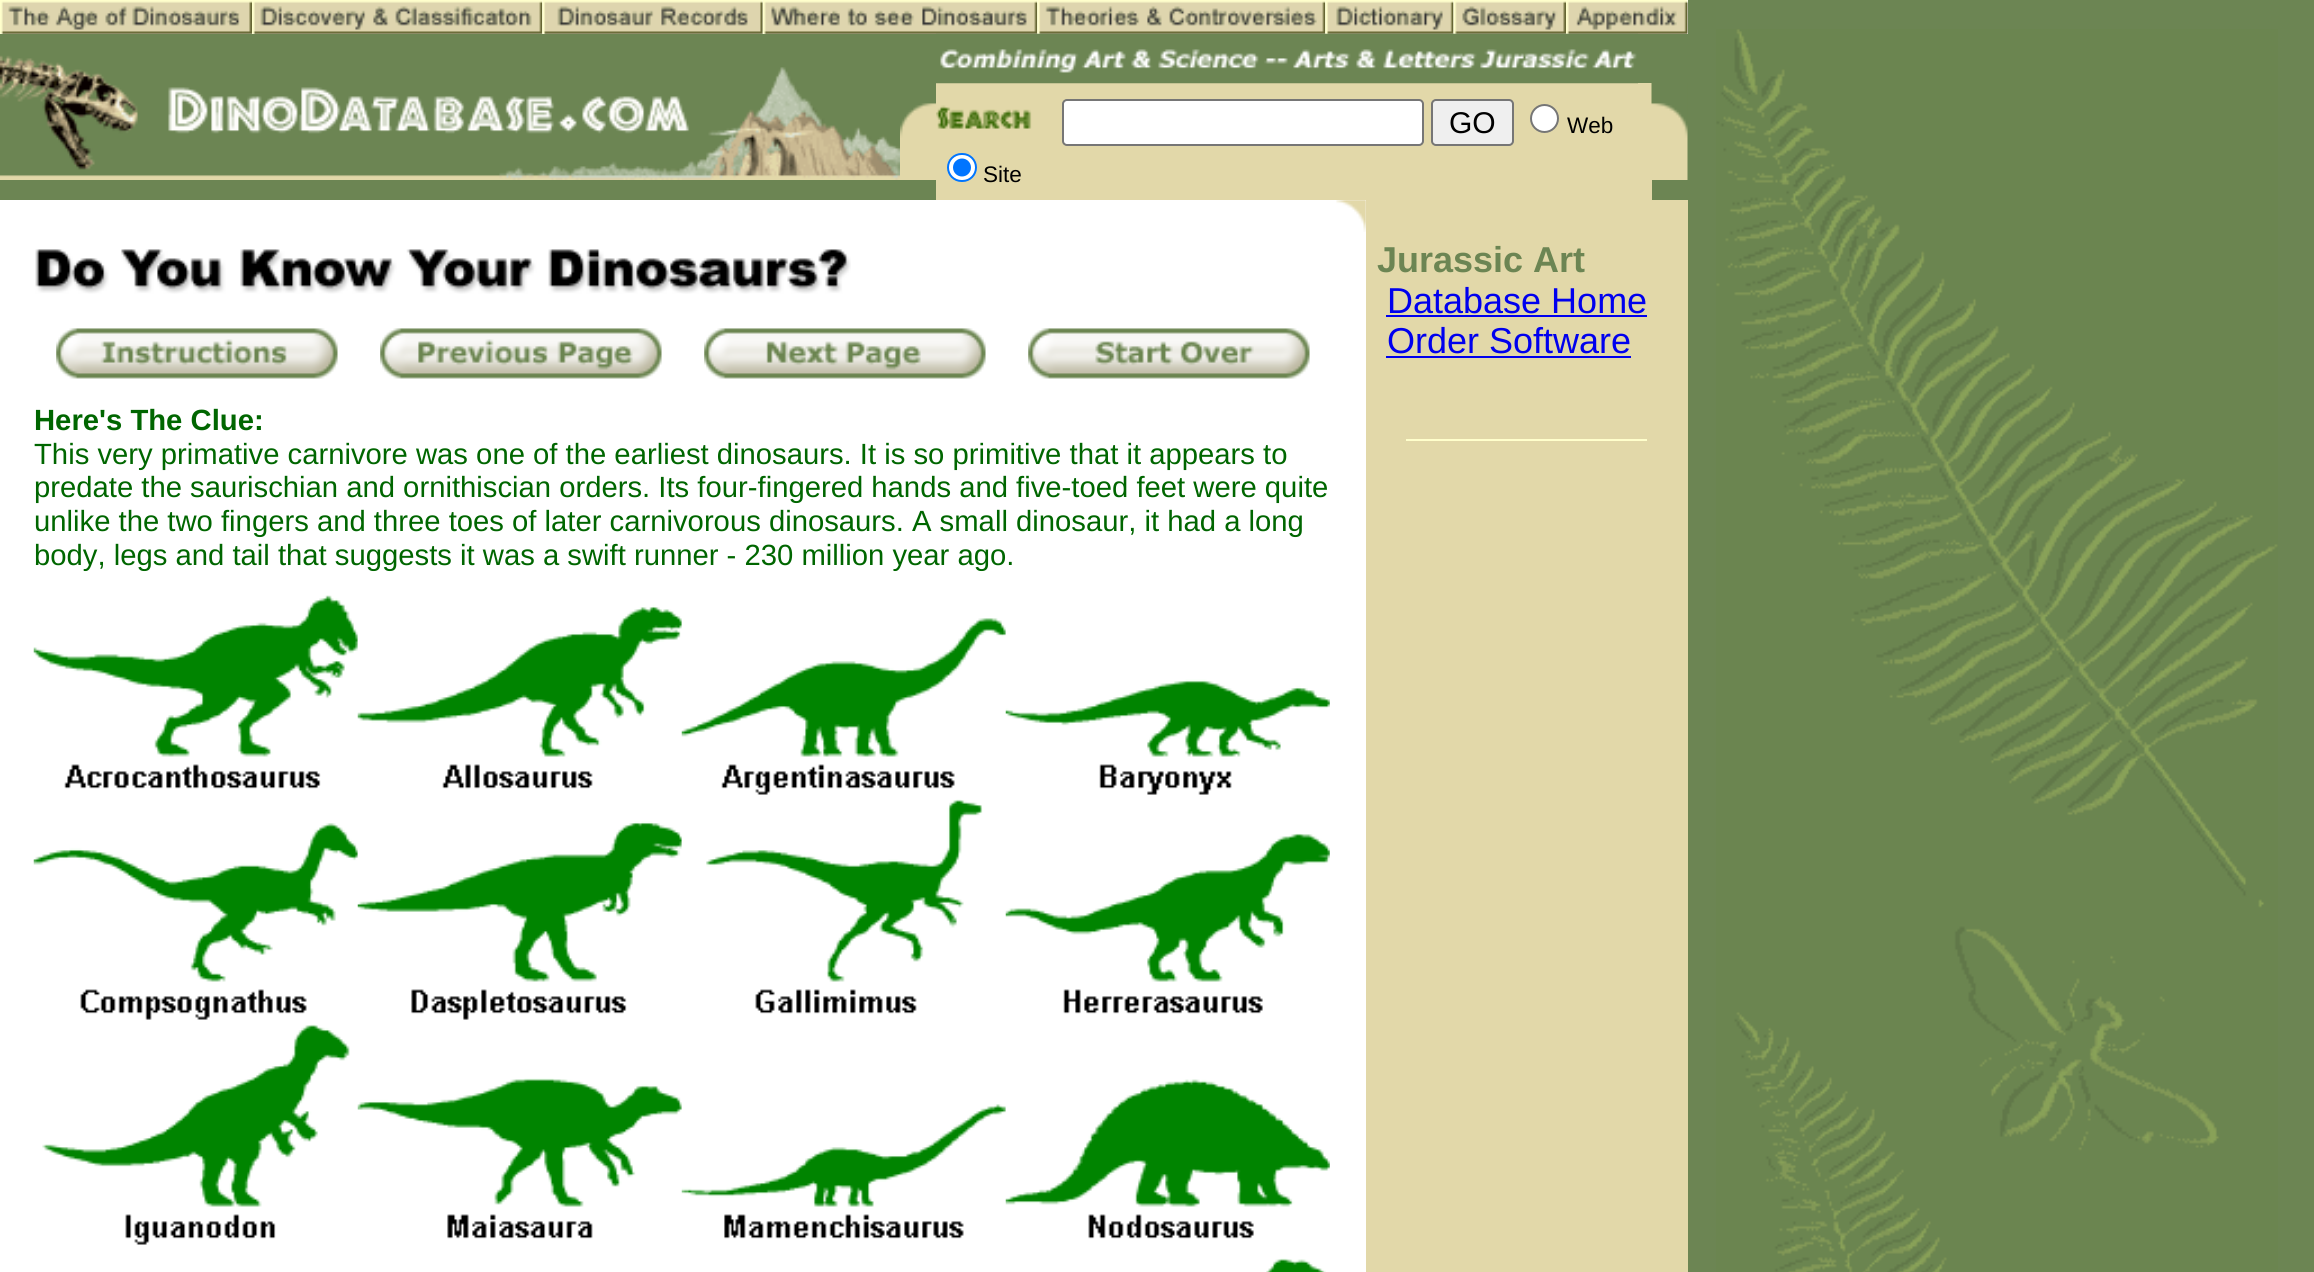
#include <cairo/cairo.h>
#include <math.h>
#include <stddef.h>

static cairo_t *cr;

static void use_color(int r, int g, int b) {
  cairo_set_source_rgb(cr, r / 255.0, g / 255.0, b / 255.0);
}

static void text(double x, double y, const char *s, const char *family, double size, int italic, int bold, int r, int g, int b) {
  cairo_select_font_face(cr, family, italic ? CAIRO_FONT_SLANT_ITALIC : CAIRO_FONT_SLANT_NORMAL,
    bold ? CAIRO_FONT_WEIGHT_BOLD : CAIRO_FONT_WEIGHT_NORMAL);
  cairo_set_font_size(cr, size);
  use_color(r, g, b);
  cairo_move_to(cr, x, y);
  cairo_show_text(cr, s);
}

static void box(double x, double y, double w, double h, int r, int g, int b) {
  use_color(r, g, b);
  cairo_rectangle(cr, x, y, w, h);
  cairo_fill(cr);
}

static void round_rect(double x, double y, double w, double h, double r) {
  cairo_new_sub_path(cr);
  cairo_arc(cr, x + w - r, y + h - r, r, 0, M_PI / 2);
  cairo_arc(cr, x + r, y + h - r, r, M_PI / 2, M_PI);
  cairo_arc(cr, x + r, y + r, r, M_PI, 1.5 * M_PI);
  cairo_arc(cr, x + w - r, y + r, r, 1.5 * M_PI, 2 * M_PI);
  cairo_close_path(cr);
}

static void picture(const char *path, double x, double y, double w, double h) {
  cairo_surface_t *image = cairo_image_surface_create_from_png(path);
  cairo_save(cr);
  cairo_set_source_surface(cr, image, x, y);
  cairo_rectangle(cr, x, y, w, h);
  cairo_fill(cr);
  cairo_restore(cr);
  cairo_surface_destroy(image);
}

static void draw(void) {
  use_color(108, 133, 83);
  cairo_paint(cr);
  picture("img_01.png", 1716, 29, 562, 1243);
  box(0, 0, 1688, 34, 255, 255, 255);
  picture("img_02.png", 0, 0, 252, 34);
  picture("img_03.png", 252, 0, 291, 34);
  picture("img_04.png", 542, 0, 221, 34);
  picture("img_05.png", 762, 0, 276, 34);
  picture("img_06.png", 1037, 0, 289, 34);
  picture("img_07.png", 1325, 0, 129, 34);
  picture("img_08.png", 1453, 0, 113, 34);
  picture("img_09.png", 1566, 0, 122, 34);
  picture("img_10.png", 0, 55, 900, 125);
  picture("img_11.png", 900, 103, 36, 77);
  box(936, 83, 716, 117, 226, 216, 169);
  picture("img_12.png", 936, 33, 702, 51);
  picture("img_13.png", 1651, 83, 37, 97);
  picture("img_14.png", 936, 105, 96, 24);
  use_color(255, 255, 255);
  round_rect(1063, 100, 360, 45, 4);
  cairo_fill_preserve(cr);
  use_color(118, 118, 118);
  cairo_stroke(cr);
  use_color(239, 239, 239);
  round_rect(1432, 100, 81, 45, 4);
  cairo_fill_preserve(cr);
  use_color(118, 118, 118);
  cairo_stroke(cr);
  use_color(255, 255, 255);
  cairo_arc(cr, 1544.5, 118.5, 13.5, 0, 2 * M_PI);
  cairo_fill_preserve(cr);
  use_color(118, 118, 118);
  cairo_stroke(cr);
  use_color(255, 255, 255);
  round_rect(948, 154, 28, 27, 13.5);
  cairo_fill_preserve(cr);
  use_color(0, 117, 255);
  cairo_stroke(cr);
  cairo_arc(cr, 962, 167.5, 9, 0, 2 * M_PI);
  cairo_fill(cr);
  box(0, 200, 1366, 41, 255, 255, 255);
  picture("img_15.png", 1336, 200, 30, 32);
  box(1366, 200, 322, 1072, 226, 216, 169);
  box(0, 241, 1366, 1031, 255, 255, 255);
  box(1386, 315, 261, 2, 0, 0, 238);
  box(1386, 356, 245, 2, 0, 0, 238);
  box(1406, 439, 241, 2, 255, 255, 204);
  picture("img_16.png", 35, 249, 816, 45);
  picture("img_17.png", 56, 328, 282, 51);
  picture("img_18.png", 380, 328, 282, 51);
  picture("img_19.png", 704, 328, 282, 51);
  picture("img_20.png", 1028, 328, 282, 51);
  picture("img_25.png", 33, 823, 325, 197);
  picture("img_26.png", 357, 821, 325, 199);
  picture("img_27.png", 681, 799, 302, 215);
  picture("img_28.png", 1005, 833, 325, 181);
  picture("img_29.png", 42, 1024, 308, 221);
  picture("img_30.png", 357, 1078, 325, 161);
  picture("img_31.png", 681, 1102, 325, 137);
  picture("img_32.png", 1005, 1079, 325, 160);
  picture("img_33.png", 1266, 1258, 60, 14);
  text(1449, 133, "GO", "Liberation Sans", 30, 0, 0, 0, 0, 0);
  text(1567, 133, "Web", "Liberation Sans", 22.5, 0, 0, 0, 0, 0);
  text(983, 182, "Site", "Liberation Sans", 22.5, 0, 0, 0, 0, 0);
  text(1377, 272, "Jurassic Art", "Liberation Sans", 36, 0, 1, 108, 133, 83);
  text(1387, 313, "Database Home", "Liberation Sans", 36, 0, 0, 0, 0, 238);
  text(1387, 353, "Order Software", "Liberation Sans", 36, 0, 0, 0, 0, 238);
  text(34, 430, "Here's The Clue:", "Liberation Sans", 29.25, 0, 1, 0, 102, 0);
  text(34, 464, "This very primative carnivore was one of the earliest dinosaurs. It is so primitive that it appears to", "Liberation Sans", 29.25, 0, 0, 0, 102, 0);
  text(34, 497, "predate the saurischian and ornithiscian orders. Its four-fingered hands and five-toed feet were quite", "Liberation Sans", 29.25, 0, 0, 0, 102, 0);
  text(34, 531, "unlike the two fingers and three toes of later carnivorous dinosaurs. A small dinosaur, it had a long", "Liberation Sans", 29.25, 0, 0, 0, 102, 0);
  text(34, 565, "body, legs and tail that suggests it was a swift runner - 230 million year ago.", "Liberation Sans", 29.25, 0, 0, 0, 102, 0);
  picture("img_21.png", 33, 571, 325, 218);
  picture("img_22.png", 357, 571, 325, 218);
  picture("img_23.png", 681, 571, 325, 224);
  picture("img_24.png", 1005, 628, 325, 167);
}

int main(void) {
  cairo_surface_t *surface = cairo_image_surface_create(CAIRO_FORMAT_RGB24, 2314, 1272);
  cr = cairo_create(surface);
  cairo_font_options_t *options = cairo_font_options_create();
  cairo_font_options_set_hint_metrics(options, CAIRO_HINT_METRICS_OFF);
  cairo_font_options_set_hint_style(options, CAIRO_HINT_STYLE_NONE);
  cairo_set_font_options(cr, options);
  cairo_set_miter_limit(cr, 4);
  draw();
  cairo_surface_write_to_png(surface, "out.png");
  cairo_font_options_destroy(options);
  cairo_destroy(cr);
  cairo_surface_destroy(surface);
  return 0;
}
